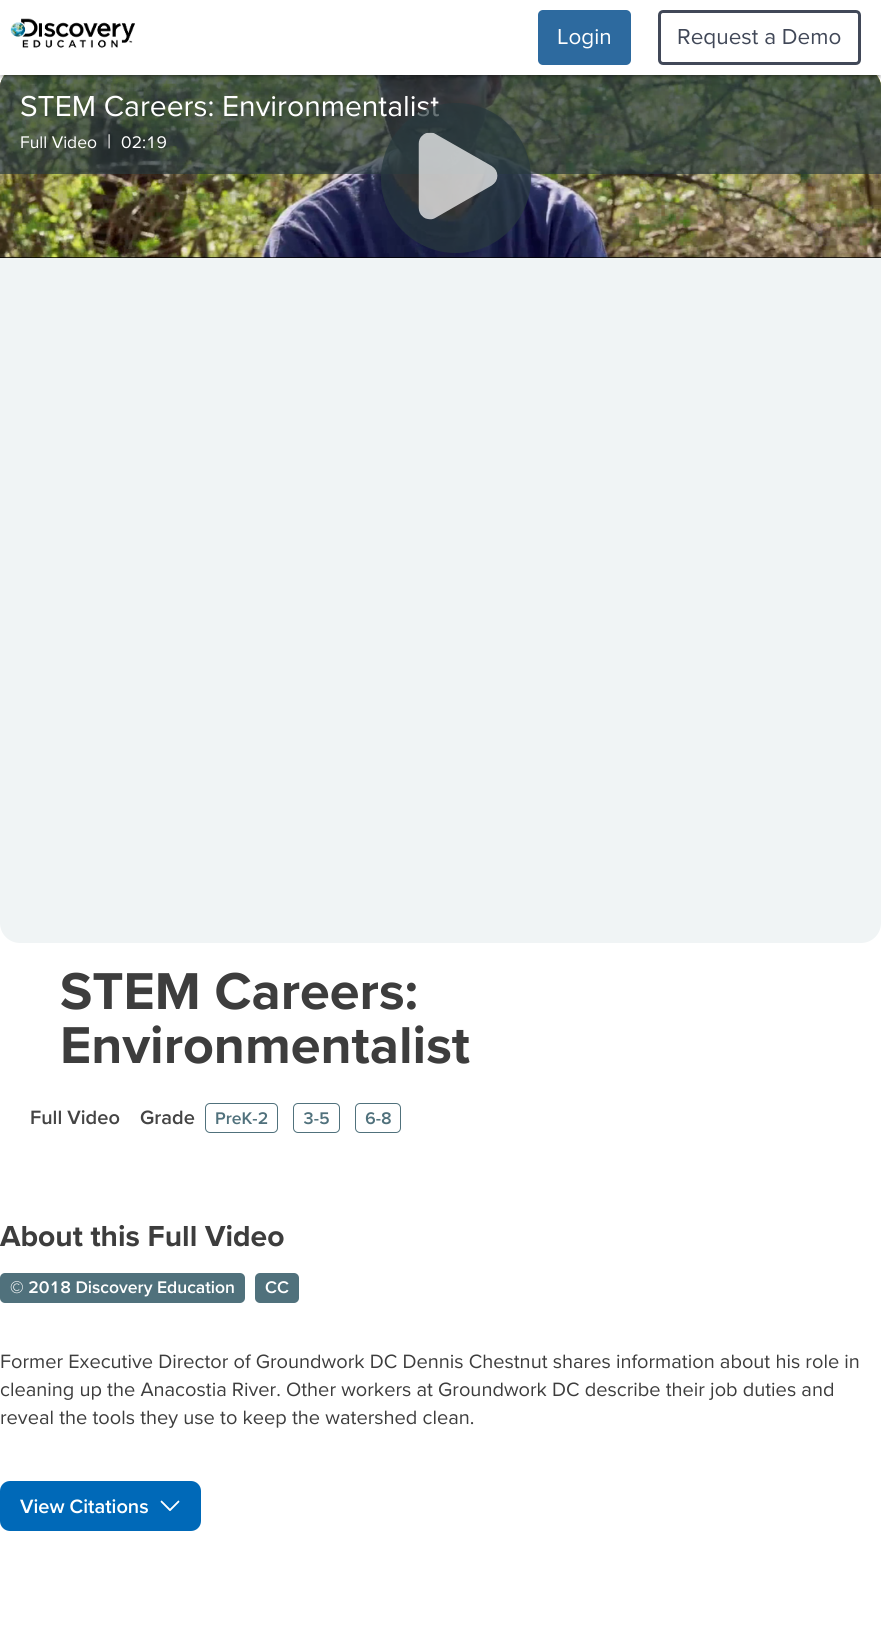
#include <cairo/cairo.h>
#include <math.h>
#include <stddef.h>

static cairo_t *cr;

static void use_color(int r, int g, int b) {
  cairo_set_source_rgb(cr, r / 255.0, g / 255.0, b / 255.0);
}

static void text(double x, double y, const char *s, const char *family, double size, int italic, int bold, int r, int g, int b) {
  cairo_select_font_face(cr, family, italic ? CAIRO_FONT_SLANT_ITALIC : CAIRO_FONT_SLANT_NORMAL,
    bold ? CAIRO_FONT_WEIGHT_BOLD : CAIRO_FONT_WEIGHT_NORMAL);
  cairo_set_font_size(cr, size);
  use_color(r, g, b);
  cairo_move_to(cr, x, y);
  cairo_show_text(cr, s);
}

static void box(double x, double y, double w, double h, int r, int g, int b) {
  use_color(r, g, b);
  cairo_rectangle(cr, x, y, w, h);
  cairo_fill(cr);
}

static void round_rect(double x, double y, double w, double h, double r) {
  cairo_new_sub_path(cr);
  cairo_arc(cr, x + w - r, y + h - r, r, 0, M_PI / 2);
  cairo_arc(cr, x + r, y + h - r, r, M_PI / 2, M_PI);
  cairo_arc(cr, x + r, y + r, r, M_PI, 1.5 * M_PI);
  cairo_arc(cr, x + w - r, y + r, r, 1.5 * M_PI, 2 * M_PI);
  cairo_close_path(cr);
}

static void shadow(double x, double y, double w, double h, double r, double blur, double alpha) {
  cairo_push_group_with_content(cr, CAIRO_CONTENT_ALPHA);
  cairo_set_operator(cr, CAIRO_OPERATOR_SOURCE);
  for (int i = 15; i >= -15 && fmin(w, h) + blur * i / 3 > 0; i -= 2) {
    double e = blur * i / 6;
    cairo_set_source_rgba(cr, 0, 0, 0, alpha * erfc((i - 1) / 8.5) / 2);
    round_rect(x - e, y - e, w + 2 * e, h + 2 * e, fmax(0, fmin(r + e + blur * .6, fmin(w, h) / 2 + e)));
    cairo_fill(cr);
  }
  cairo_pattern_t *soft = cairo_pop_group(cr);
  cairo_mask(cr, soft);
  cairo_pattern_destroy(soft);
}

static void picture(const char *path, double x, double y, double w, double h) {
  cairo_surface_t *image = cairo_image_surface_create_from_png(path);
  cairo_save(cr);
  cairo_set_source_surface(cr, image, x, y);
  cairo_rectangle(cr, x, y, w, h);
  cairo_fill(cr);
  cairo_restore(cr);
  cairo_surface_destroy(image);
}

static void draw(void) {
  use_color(255, 255, 255);
  cairo_paint(cr);
  use_color(240, 244, 245);
  round_rect(0, 68, 881, 875, 20);
  cairo_fill(cr);
  use_color(0, 0, 0);
  cairo_new_path(cr);
  cairo_move_to(cr, 20, 68);
  cairo_line_to(cr, 861, 68);
  cairo_curve_to(cr, 872, 68, 881, 77, 881, 88);
  cairo_line_to(cr, 881, 258);
  cairo_line_to(cr, 0, 258);
  cairo_line_to(cr, 0, 88);
  cairo_curve_to(cr, 0, 77, 9, 68, 20, 68);
  cairo_close_path(cr);
  cairo_fill(cr);
  picture("img_02.png", 0, 75, 881, 183);
  cairo_set_source_rgba(cr, 0.157, 0.224, 0.243, 0.7);
  cairo_new_path(cr);
  cairo_move_to(cr, 20, 68);
  cairo_line_to(cr, 861, 68);
  cairo_curve_to(cr, 872, 68, 881, 77, 881, 88);
  cairo_line_to(cr, 881, 174);
  cairo_line_to(cr, 0, 174);
  cairo_line_to(cr, 0, 88);
  cairo_curve_to(cr, 0, 77, 9, 68, 20, 68);
  cairo_close_path(cr);
  cairo_fill(cr);
  use_color(0, 0, 0);
  shadow(3, 6, 876, 70, 0, 0.5, 0.2);
  shadow(0, 1, 881, 75, 0, 3, 0.12);
  shadow(0, 3, 881, 75, 0, 1, 0.14);
  box(0, 0, 881, 75, 255, 255, 255);
  picture("img_01.png", 10, 18, 125, 30);
  use_color(45, 106, 159);
  round_rect(538, 10, 93, 55, 5);
  cairo_fill(cr);
  round_rect(659.5, 11.5, 200, 52, 3.5);
  use_color(65, 72, 88);
  cairo_set_line_width(cr, 3);
  cairo_stroke(cr);
  round_rect(205.5, 1103.5, 72, 29, 4.5);
  use_color(80, 113, 124);
  cairo_set_line_width(cr, 1);
  cairo_stroke(cr);
  round_rect(293.5, 1103.5, 46, 29, 4.5);
  cairo_stroke(cr);
  round_rect(355.5, 1103.5, 45, 29, 4.5);
  cairo_stroke(cr);
  round_rect(0, 1273, 245, 30, 5);
  cairo_fill(cr);
  round_rect(255, 1273, 44, 30, 5);
  cairo_fill(cr);
  use_color(0, 105, 184);
  round_rect(0, 1481, 201, 50, 10);
  cairo_fill(cr);
  picture("img_04.png", 160, 1500, 20, 11);
  text(557, 44, "Login", "Proxima Nova", 22.5, 0, 0, 255, 255, 255);
  text(677, 44, "Request a Demo", "Proxima Nova", 22.5, 0, 0, 65, 72, 88);
  text(20, 116, "STEM Careers: Environmentalist", "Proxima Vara", 30, 0, 0, 255, 255, 255);
  text(20, 148, "Full Video", "Proxima Vara", 17.5, 0, 0, 255, 255, 255);
  text(107, 148, "|", "Proxima Vara", 20, 0, 0, 255, 255, 255);
  text(121, 148, "02:19", "Proxima Vara", 17.5, 0, 0, 255, 255, 255);
  cairo_set_source_rgba(cr, 0.157, 0.224, 0.243, 0.7);
  cairo_new_path(cr);
  cairo_arc(cr, 456, 178, 75, 0, 2 * M_PI);
  cairo_fill(cr);
  picture("img_03.png", 418, 132, 80, 88);
  text(60, 1009, "STEM Careers:", "Proxima Vara", 53.75, 0, 1, 61, 61, 61);
  text(60, 1063, "Environmentalist", "Proxima Vara", 53.75, 0, 1, 61, 61, 61);
  text(30, 1124, "Full Video", "Proxima Vara SemiBold", 20, 0, 0, 68, 68, 68);
  text(140, 1124, "Grade", "Proxima Vara SemiBold", 20, 0, 0, 68, 68, 68);
  text(215, 1124, "PreK-2", "Proxima Vara SemiBold", 17.5, 0, 0, 80, 113, 124);
  text(303, 1124, "3-5", "Proxima Vara SemiBold", 17.5, 0, 0, 80, 113, 124);
  text(365, 1124, "6-8", "Proxima Vara SemiBold", 17.5, 0, 0, 80, 113, 124);
  text(0, 1246, "About this Full Video", "Proxima Vara", 30, 0, 1, 61, 61, 61);
  text(10, 1293, "© 2018 Discovery Education", "Proxima Vara SemiBold", 17.5, 0, 0, 255, 255, 255);
  text(265, 1293, "CC", "Proxima Vara SemiBold", 17.5, 0, 0, 255, 255, 255);
  text(0, 1368, "Former Executive Director of Groundwork DC Dennis Chestnut shares information about his role in", "Proxima Vara", 20, 0, 0, 61, 61, 61);
  text(0, 1396, "cleaning up the Anacostia River. Other workers at Groundwork DC describe their job duties and", "Proxima Vara", 20, 0, 0, 61, 61, 61);
  text(0, 1424, "reveal the tools they use to keep the watershed clean.", "Proxima Vara", 20, 0, 0, 61, 61, 61);
  text(20, 1513, "View Citations", "Proxima Vara SemiBold", 20, 0, 0, 255, 255, 255);
}

int main(void) {
  cairo_surface_t *surface = cairo_image_surface_create(CAIRO_FORMAT_RGB24, 881, 1635);
  cr = cairo_create(surface);
  cairo_font_options_t *options = cairo_font_options_create();
  cairo_font_options_set_hint_metrics(options, CAIRO_HINT_METRICS_OFF);
  cairo_font_options_set_hint_style(options, CAIRO_HINT_STYLE_NONE);
  cairo_set_font_options(cr, options);
  cairo_set_miter_limit(cr, 4);
  draw();
  cairo_surface_write_to_png(surface, "out.png");
  cairo_font_options_destroy(options);
  cairo_destroy(cr);
  cairo_surface_destroy(surface);
  return 0;
}
